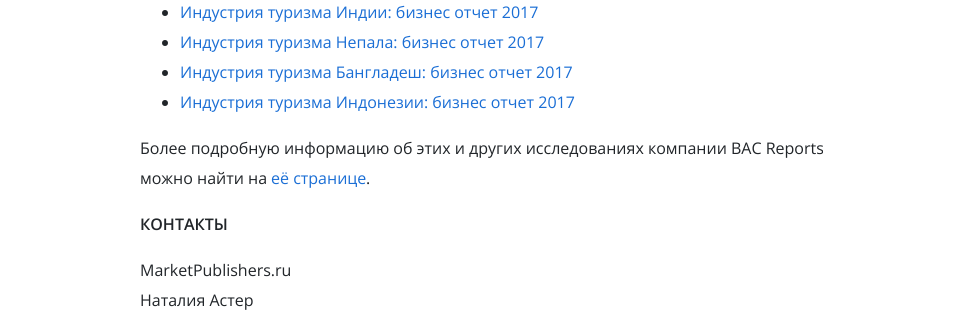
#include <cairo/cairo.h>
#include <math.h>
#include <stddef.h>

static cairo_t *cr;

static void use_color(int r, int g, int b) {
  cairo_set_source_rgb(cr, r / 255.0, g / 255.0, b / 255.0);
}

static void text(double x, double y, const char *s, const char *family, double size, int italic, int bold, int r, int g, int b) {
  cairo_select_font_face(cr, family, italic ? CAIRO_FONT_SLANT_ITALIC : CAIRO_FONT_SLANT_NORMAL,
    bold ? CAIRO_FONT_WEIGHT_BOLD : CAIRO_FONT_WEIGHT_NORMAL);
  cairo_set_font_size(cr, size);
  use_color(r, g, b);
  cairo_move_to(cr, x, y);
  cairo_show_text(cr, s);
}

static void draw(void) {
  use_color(255, 255, 255);
  cairo_paint(cr);
  use_color(33, 37, 41);
  cairo_arc(cr, 165, 13, 3, 0, 2 * M_PI);
  cairo_fill(cr);
  cairo_arc(cr, 165, 43, 3, 0, 2 * M_PI);
  cairo_fill(cr);
  cairo_arc(cr, 165, 73, 3, 0, 2 * M_PI);
  cairo_fill(cr);
  cairo_arc(cr, 165, 103, 3, 0, 2 * M_PI);
  cairo_fill(cr);
  text(180, 18, "Индустрия туризма Индии: бизнес отчет 2017", "Open Sans", 16, 0, 0, 26, 110, 213);
  text(180, 48, "Индустрия туризма Непала: бизнес отчет 2017", "Open Sans", 16, 0, 0, 26, 110, 213);
  text(180, 78, "Индустрия туризма Бангладеш: бизнес отчет 2017", "Open Sans", 16, 0, 0, 26, 110, 213);
  text(180, 108, "Индустрия туризма Индонезии: бизнес отчет 2017", "Open Sans", 16, 0, 0, 26, 110, 213);
  text(140, 154, "Более подробную информацию об этих и других исследованиях компании BAC Reports", "Open Sans", 16, 0, 0, 33, 37, 41);
  text(140, 184, "можно найти на", "Open Sans", 16, 0, 0, 33, 37, 41);
  text(271, 184, "её странице", "Open Sans", 16, 0, 0, 26, 110, 213);
  text(366, 184, ".", "Open Sans", 16, 0, 0, 33, 37, 41);
  text(140, 230, "КОНТАКТЫ", "Open Sans SemiBold", 16, 0, 0, 33, 37, 41);
  text(140, 276, "MarketPublishers.ru", "Open Sans", 16, 0, 0, 33, 37, 41);
  text(140, 306, "Наталия Астер", "Open Sans", 16, 0, 0, 33, 37, 41);
}

int main(void) {
  cairo_surface_t *surface = cairo_image_surface_create(CAIRO_FORMAT_RGB24, 969, 312);
  cr = cairo_create(surface);
  cairo_font_options_t *options = cairo_font_options_create();
  cairo_font_options_set_hint_metrics(options, CAIRO_HINT_METRICS_OFF);
  cairo_font_options_set_hint_style(options, CAIRO_HINT_STYLE_NONE);
  cairo_set_font_options(cr, options);
  cairo_set_miter_limit(cr, 4);
  draw();
  cairo_surface_write_to_png(surface, "out.png");
  cairo_font_options_destroy(options);
  cairo_destroy(cr);
  cairo_surface_destroy(surface);
  return 0;
}
